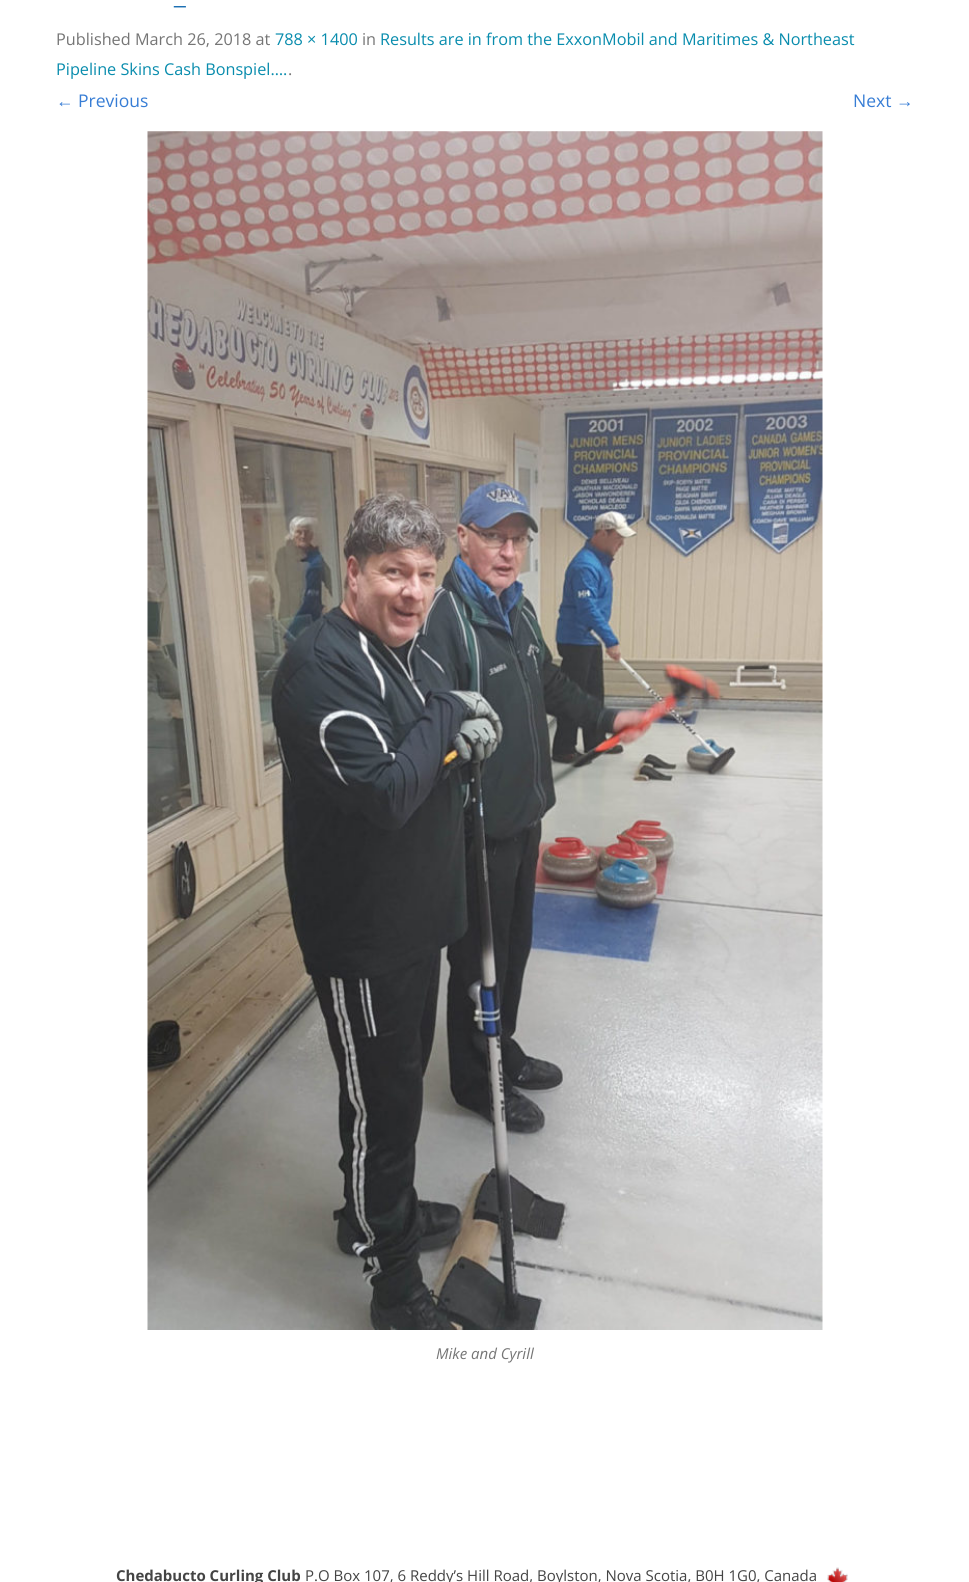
#include <cairo/cairo.h>
#include <math.h>
#include <stddef.h>

static cairo_t *cr;

static void use_color(int r, int g, int b) {
  cairo_set_source_rgb(cr, r / 255.0, g / 255.0, b / 255.0);
}

static void text(double x, double y, const char *s, const char *family, double size, int italic, int bold, int r, int g, int b) {
  cairo_select_font_face(cr, family, italic ? CAIRO_FONT_SLANT_ITALIC : CAIRO_FONT_SLANT_NORMAL,
    bold ? CAIRO_FONT_WEIGHT_BOLD : CAIRO_FONT_WEIGHT_NORMAL);
  cairo_set_font_size(cr, size);
  use_color(r, g, b);
  cairo_move_to(cr, x, y);
  cairo_show_text(cr, s);
}

static void picture(const char *path, double x, double y, double w, double h) {
  cairo_surface_t *image = cairo_image_surface_create_from_png(path);
  cairo_save(cr);
  cairo_set_source_surface(cr, image, x, y);
  cairo_rectangle(cr, x, y, w, h);
  cairo_fill(cr);
  cairo_restore(cr);
  cairo_surface_destroy(image);
}

static void draw(void) {
  use_color(255, 255, 255);
  cairo_paint(cr);
  picture("img_01.png", 147, 131, 676, 1199);
  picture("img_02.png", 827, 1567, 21, 15);
  text(173, 6, "_", "Quattrocento Sans", 28, 0, 0, 29, 112, 179);
  text(56, 45, "Published March 26, 2018 at", "Open Sans", 16.25, 0, 0, 117, 117, 117);
  text(275, 45, "788 × 1400", "Open Sans", 16.25, 0, 0, 8, 140, 173);
  text(362, 45, "in", "Open Sans", 16.25, 0, 0, 117, 117, 117);
  text(380, 45, "Results are in from the ExxonMobil and Maritimes & Northeast", "Open Sans", 16.25, 0, 0, 8, 140, 173);
  text(56, 75, "Pipeline Skins Cash Bonspiel….", "Open Sans", 16.25, 0, 0, 8, 140, 173);
  text(288, 75, ".", "Open Sans", 16.25, 0, 0, 117, 117, 117);
  text(56, 107, "←", "Liberation Sans", 17.5, 0, 0, 55, 125, 213);
  text(78, 107, "Previous", "Open Sans", 17.5, 0, 0, 55, 125, 213);
  text(853, 107, "Next", "Open Sans", 17.5, 0, 0, 55, 125, 213);
  text(896, 107, "→", "Liberation Sans", 17.5, 0, 0, 55, 125, 213);
  text(436, 1359, "Mike and Cyrill", "Open Sans", 15, 1, 0, 117, 117, 117);
  text(116, 1581, "Chedabucto Curling Club", "Open Sans", 15, 0, 1, 68, 68, 68);
  text(305, 1581, "P.O Box 107, 6 Reddy’s Hill Road, Boylston, Nova Scotia, B0H 1G0, Canada", "Open Sans", 15, 0, 0, 68, 68, 68);
}

int main(void) {
  cairo_surface_t *surface = cairo_image_surface_create(CAIRO_FORMAT_RGB24, 969, 1582);
  cr = cairo_create(surface);
  cairo_font_options_t *options = cairo_font_options_create();
  cairo_font_options_set_hint_metrics(options, CAIRO_HINT_METRICS_OFF);
  cairo_font_options_set_hint_style(options, CAIRO_HINT_STYLE_NONE);
  cairo_set_font_options(cr, options);
  cairo_set_miter_limit(cr, 4);
  draw();
  cairo_surface_write_to_png(surface, "out.png");
  cairo_font_options_destroy(options);
  cairo_destroy(cr);
  cairo_surface_destroy(surface);
  return 0;
}
